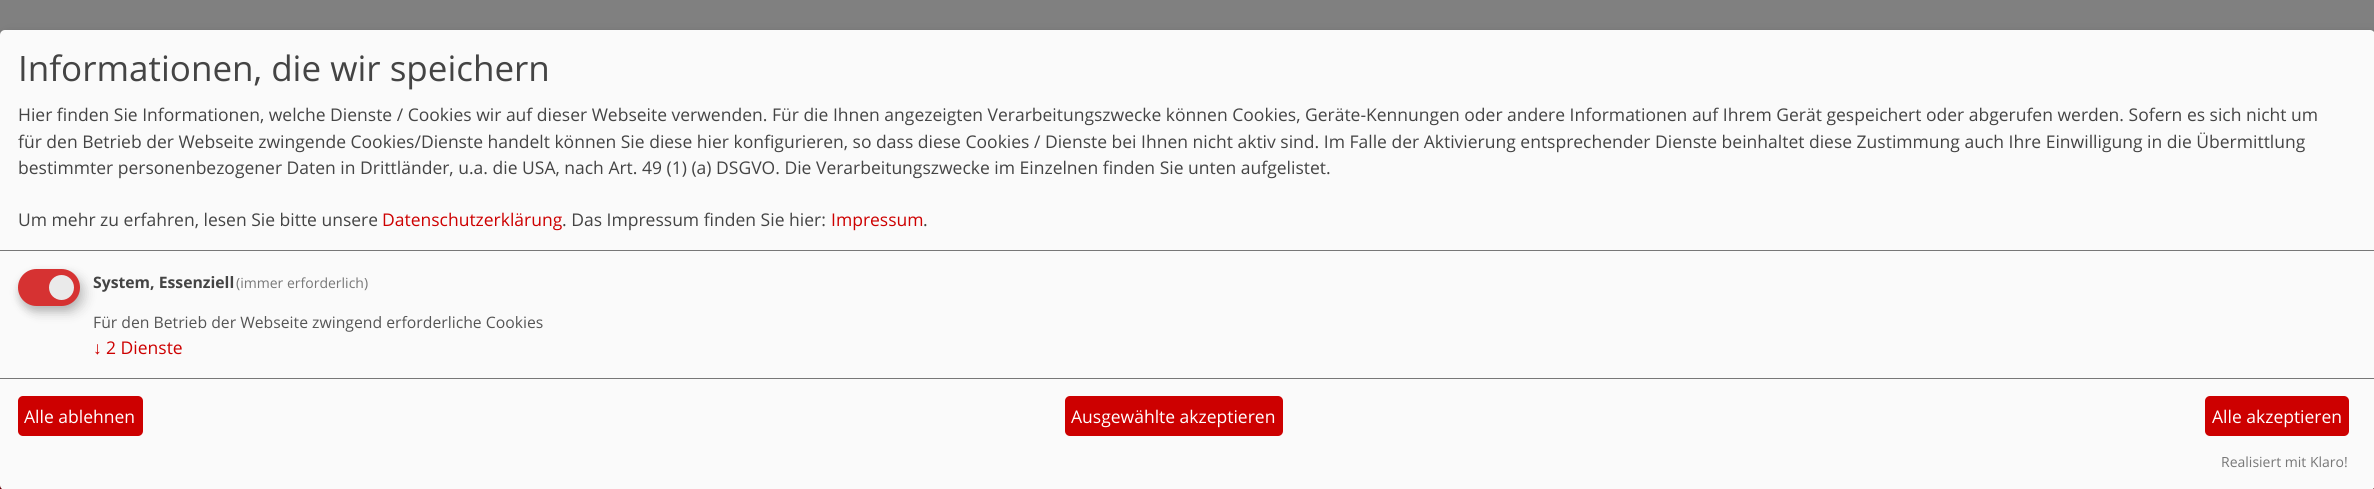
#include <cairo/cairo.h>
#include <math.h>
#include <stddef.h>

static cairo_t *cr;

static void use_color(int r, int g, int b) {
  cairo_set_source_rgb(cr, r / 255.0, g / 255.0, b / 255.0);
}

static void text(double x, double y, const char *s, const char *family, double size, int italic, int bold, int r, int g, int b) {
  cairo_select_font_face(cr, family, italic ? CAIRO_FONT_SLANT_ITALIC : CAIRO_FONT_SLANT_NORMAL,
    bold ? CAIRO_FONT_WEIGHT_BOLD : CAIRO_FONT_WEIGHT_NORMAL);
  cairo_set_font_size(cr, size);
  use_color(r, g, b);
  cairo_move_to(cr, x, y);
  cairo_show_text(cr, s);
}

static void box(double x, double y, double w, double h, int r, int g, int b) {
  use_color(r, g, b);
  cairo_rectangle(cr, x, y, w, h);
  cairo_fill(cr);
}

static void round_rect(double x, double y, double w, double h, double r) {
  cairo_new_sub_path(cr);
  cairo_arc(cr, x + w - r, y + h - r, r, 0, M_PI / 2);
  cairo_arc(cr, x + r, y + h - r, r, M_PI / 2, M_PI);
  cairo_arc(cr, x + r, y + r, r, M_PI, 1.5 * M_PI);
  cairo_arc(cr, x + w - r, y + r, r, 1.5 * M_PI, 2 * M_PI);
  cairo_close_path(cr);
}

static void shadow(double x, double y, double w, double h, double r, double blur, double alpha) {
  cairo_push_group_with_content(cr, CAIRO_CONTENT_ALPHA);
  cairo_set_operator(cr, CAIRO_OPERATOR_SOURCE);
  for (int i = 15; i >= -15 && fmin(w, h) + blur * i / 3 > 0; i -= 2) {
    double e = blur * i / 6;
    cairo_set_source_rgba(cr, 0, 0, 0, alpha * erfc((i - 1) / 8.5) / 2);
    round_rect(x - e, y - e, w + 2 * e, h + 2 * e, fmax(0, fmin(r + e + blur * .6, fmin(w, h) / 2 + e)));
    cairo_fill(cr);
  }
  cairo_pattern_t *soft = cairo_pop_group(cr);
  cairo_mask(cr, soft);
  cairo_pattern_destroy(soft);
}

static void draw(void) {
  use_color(128, 128, 128);
  cairo_paint(cr);
  box(0, 485, 2374, 4, 114, 0, 8);
  use_color(0, 0, 0);
  shadow(6, 36, 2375, 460, 5, 6, 0.19);
  shadow(0, 35, 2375, 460, 5, 4, 0.2);
  use_color(250, 250, 250);
  round_rect(0, 30, 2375, 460, 5);
  cairo_fill(cr);
  box(0, 250, 2374, 1, 119, 119, 119);
  use_color(0, 0, 0);
  shadow(24, 275, 62, 38, 19, 6, 0.15);
  use_color(50, 50, 50);
  shadow(18, 274, 62, 37, 18.5, 4, 0.2);
  use_color(214, 50, 50);
  round_rect(18, 269, 62, 37, 18.5);
  cairo_fill(cr);
  use_color(234, 234, 234);
  cairo_arc(cr, 61.5, 287.5, 12.5, 0, 2 * M_PI);
  cairo_fill(cr);
  box(0, 378, 2374, 1, 119, 119, 119);
  use_color(205, 0, 0);
  round_rect(18, 396, 125, 40, 5);
  cairo_fill(cr);
  round_rect(1065, 396, 218, 40, 5);
  cairo_fill(cr);
  round_rect(2205, 396, 144, 40, 5);
  cairo_fill(cr);
  text(18, 81, "Informationen, die wir speichern", "Open Sans", 35, 0, 0, 68, 68, 68);
  text(18, 121, "Hier finden Sie Informationen, welche Dienste / Cookies wir auf dieser Webseite verwenden. Für die Ihnen angezeigten Verarbeitungszwecke können Cookies, Geräte-Kennungen oder andere Informationen auf Ihrem Gerät gespeichert oder abgerufen werden. Sofern es sich nicht um", "Open Sans", 17.5, 0, 0, 68, 68, 68);
  text(18, 148, "für den Betrieb der Webseite zwingende Cookies/Dienste handelt können Sie diese hier konfigurieren, so dass diese Cookies / Dienste bei Ihnen nicht aktiv sind. Im Falle der Aktivierung entsprechender Dienste beinhaltet diese Zustimmung auch Ihre Einwilligung in die Übermittlung", "Open Sans", 17.5, 0, 0, 68, 68, 68);
  text(18, 174, "bestimmter personenbezogener Daten in Drittländer, u.a. die USA, nach Art. 49 (1) (a) DSGVO. Die Verarbeitungszwecke im Einzelnen finden Sie unten aufgelistet.", "Open Sans", 17.5, 0, 0, 68, 68, 68);
  text(18, 226, "Um mehr zu erfahren, lesen Sie bitte unsere", "Open Sans", 17.5, 0, 0, 68, 68, 68);
  text(382, 226, "Datenschutzerklärung", "Open Sans", 17.5, 0, 0, 205, 0, 0);
  text(562, 226, ". Das Impressum finden Sie hier:", "Open Sans", 17.5, 0, 0, 68, 68, 68);
  text(831, 226, "Impressum", "Open Sans", 17.5, 0, 0, 205, 0, 0);
  text(923, 226, ".", "Open Sans", 17.5, 0, 0, 68, 68, 68);
  text(93, 288, "System, Essenziell", "Open Sans", 15.75, 0, 1, 68, 68, 68);
  text(236, 288, "(immer erforderlich)", "Open Sans", 14, 0, 0, 119, 119, 119);
  text(93, 328, "Für den Betrieb der Webseite zwingend erforderliche Cookies", "Open Sans", 15.75, 0, 0, 85, 85, 85);
  text(93, 354, "↓", "Liberation Sans", 17.5, 0, 0, 205, 0, 0);
  text(106, 354, "2 Dienste", "Open Sans", 17.5, 0, 0, 205, 0, 0);
  text(24, 423, "Alle ablehnen", "Open Sans", 17.5, 0, 0, 255, 255, 255);
  text(1071, 423, "Ausgewählte akzeptieren", "Open Sans", 17.5, 0, 0, 255, 255, 255);
  text(2212, 423, "Alle akzeptieren", "Open Sans", 17.5, 0, 0, 255, 255, 255);
  text(2221, 467, "Realisiert mit Klaro!", "Open Sans", 14, 0, 0, 119, 119, 119);
}

int main(void) {
  cairo_surface_t *surface = cairo_image_surface_create(CAIRO_FORMAT_RGB24, 2374, 489);
  cr = cairo_create(surface);
  cairo_font_options_t *options = cairo_font_options_create();
  cairo_font_options_set_hint_metrics(options, CAIRO_HINT_METRICS_OFF);
  cairo_font_options_set_hint_style(options, CAIRO_HINT_STYLE_NONE);
  cairo_set_font_options(cr, options);
  cairo_set_miter_limit(cr, 4);
  draw();
  cairo_surface_write_to_png(surface, "out.png");
  cairo_font_options_destroy(options);
  cairo_destroy(cr);
  cairo_surface_destroy(surface);
  return 0;
}
